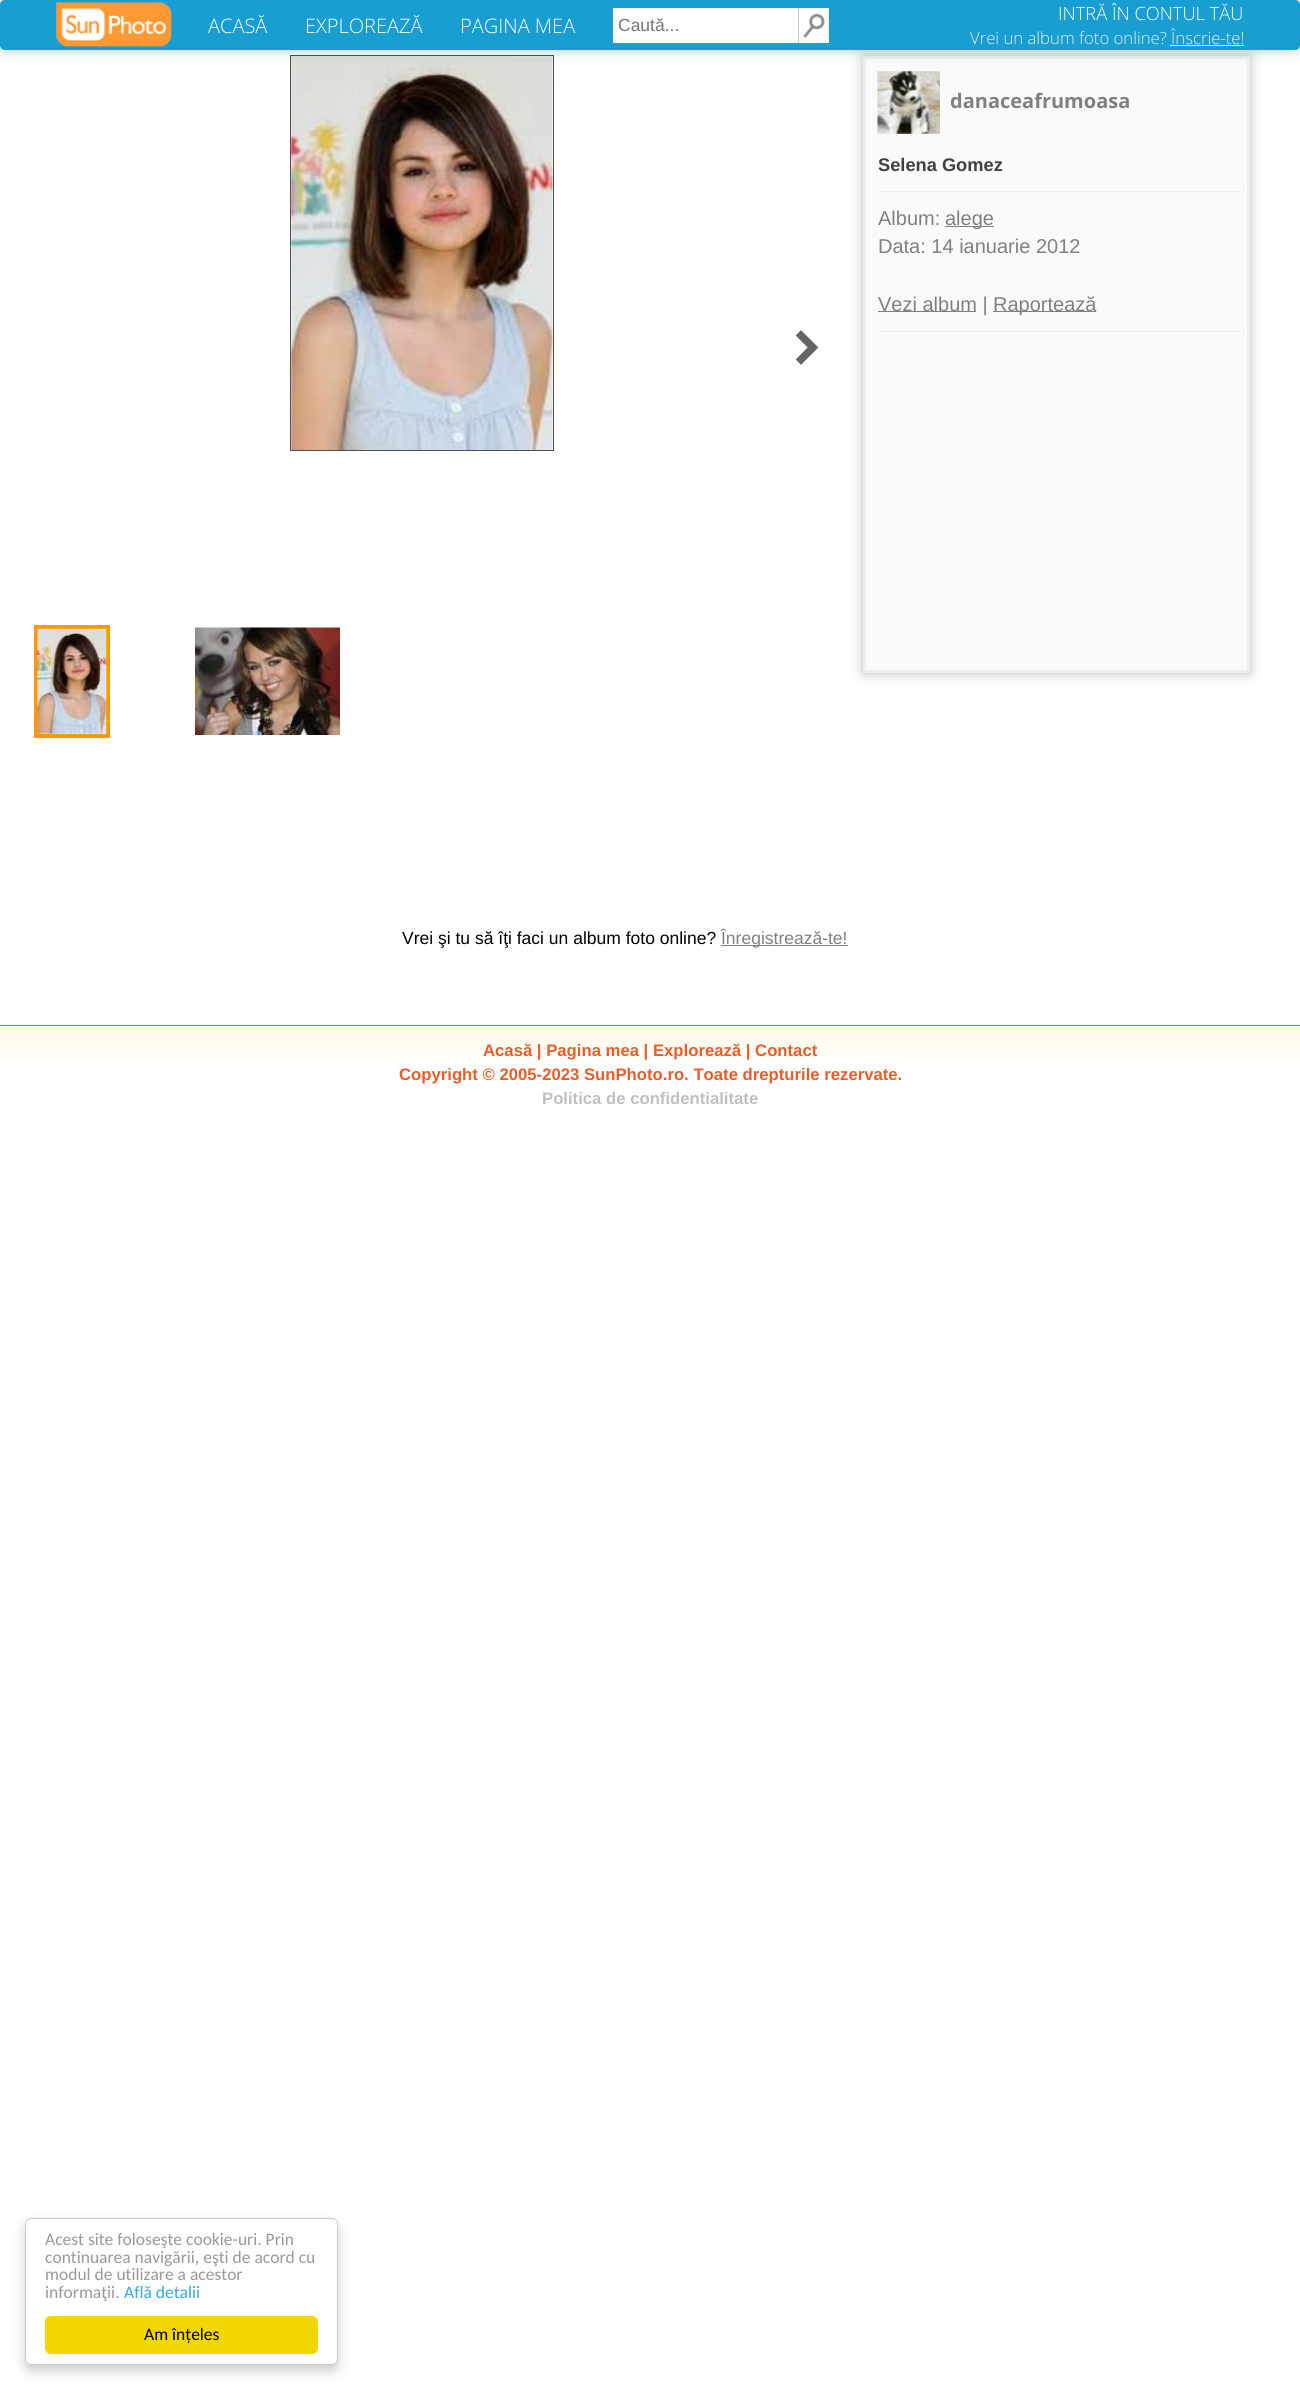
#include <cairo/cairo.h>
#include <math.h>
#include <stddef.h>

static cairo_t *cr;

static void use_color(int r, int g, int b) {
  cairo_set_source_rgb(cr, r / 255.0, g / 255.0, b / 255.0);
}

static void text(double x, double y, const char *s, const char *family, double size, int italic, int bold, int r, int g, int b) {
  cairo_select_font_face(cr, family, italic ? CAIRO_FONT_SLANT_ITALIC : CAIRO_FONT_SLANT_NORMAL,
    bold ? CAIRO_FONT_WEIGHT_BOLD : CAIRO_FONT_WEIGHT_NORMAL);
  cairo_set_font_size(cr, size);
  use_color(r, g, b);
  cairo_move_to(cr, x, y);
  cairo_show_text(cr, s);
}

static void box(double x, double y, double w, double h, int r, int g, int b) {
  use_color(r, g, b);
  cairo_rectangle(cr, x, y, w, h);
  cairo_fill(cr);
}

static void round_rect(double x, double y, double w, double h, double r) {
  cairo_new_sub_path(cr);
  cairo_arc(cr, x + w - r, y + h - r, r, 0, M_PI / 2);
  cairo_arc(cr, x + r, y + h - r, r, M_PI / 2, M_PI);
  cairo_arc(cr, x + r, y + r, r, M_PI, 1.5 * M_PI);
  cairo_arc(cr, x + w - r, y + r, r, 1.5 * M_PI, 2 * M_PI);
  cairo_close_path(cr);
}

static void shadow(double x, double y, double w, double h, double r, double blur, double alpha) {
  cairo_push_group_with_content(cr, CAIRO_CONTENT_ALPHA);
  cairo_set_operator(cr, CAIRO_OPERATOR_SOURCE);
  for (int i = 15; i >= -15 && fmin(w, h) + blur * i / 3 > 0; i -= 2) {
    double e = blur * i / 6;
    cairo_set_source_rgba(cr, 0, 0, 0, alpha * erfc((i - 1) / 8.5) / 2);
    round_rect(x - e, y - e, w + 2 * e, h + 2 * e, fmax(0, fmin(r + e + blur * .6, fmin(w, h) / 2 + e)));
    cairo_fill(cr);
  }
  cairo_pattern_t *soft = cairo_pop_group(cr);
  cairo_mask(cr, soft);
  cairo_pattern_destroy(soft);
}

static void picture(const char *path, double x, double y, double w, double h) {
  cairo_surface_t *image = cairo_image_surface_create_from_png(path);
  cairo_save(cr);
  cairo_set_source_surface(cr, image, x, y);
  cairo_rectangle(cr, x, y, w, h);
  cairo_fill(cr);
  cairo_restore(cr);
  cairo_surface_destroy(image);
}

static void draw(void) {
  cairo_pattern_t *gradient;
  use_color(255, 255, 255);
  cairo_paint(cr);
  cairo_rectangle(cr, 290.5, 55.5, 263, 395);
  use_color(80, 80, 80);
  cairo_set_line_width(cr, 1);
  cairo_stroke(cr);
  picture("img_03.png", 291, 56, 262, 394);
  use_color(0, 0, 0);
  shadow(863, 56, 387, 617, 0, 6, 0.25);
  use_color(250, 250, 250);
  cairo_rectangle(cr, 864.5, 57.5, 384, 614);
  cairo_fill_preserve(cr);
  use_color(238, 238, 238);
  cairo_set_line_width(cr, 3);
  cairo_stroke(cr);
  use_color(0, 0, 0);
  shadow(0, 0, 1300, 50, 5, 6, 0.25);
  use_color(25, 158, 210);
  round_rect(0, 0, 1300, 50, 5);
  cairo_fill(cr);
  picture("img_01.png", 56, 2, 116, 45);
  box(613, 8, 185, 35, 255, 255, 255);
  box(799, 8, 30, 35, 255, 255, 255);
  box(798, 8, 1, 35, 204, 204, 204);
  picture("img_02.png", 802, 13, 23, 25);
  box(1170, 45, 74, 1, 238, 238, 238);
  use_color(100, 100, 100);
  cairo_new_path(cr);
  cairo_move_to(cr, 801, 332);
  cairo_line_to(cr, 797.5, 335.5);
  cairo_line_to(cr, 809.5, 347.5);
  cairo_line_to(cr, 797.5, 359.5);
  cairo_line_to(cr, 801, 363);
  cairo_line_to(cr, 816.5, 347.5);
  cairo_close_path(cr);
  cairo_fill_preserve(cr);
  cairo_set_line_width(cr, 2.6);
  cairo_stroke(cr);
  picture("img_04.png", 877, 71, 63, 63);
  box(878, 191, 363, 1, 238, 238, 238);
  box(945, 226, 49, 1, 128, 128, 128);
  box(878, 311, 98, 1, 128, 128, 128);
  box(993, 311, 103, 1, 128, 128, 128);
  box(878, 331, 363, 1, 238, 238, 238);
  cairo_rectangle(cr, 36, 627, 72, 109);
  use_color(254, 153, 1);
  cairo_set_line_width(cr, 4);
  cairo_stroke(cr);
  picture("img_05.png", 37, 628, 70, 106);
  picture("img_06.png", 195, 627, 145, 108);
  box(721, 945, 127, 1, 128, 128, 128);
  gradient = cairo_pattern_create_linear(650, 1026, 650, 1065);
  cairo_pattern_add_color_stop_rgba(gradient, 0, 1, 0.976, 0.898, 1);
  cairo_pattern_add_color_stop_rgba(gradient, 1, 1, 1, 1, 1);
  cairo_set_source(cr, gradient);
  cairo_pattern_destroy(gradient);
  cairo_rectangle(cr, 0, 1026, 1300, 35);
  cairo_fill(cr);
  box(0, 1025, 1300, 1, 233, 93, 42);
  use_color(0, 0, 0);
  shadow(25, 2224, 313, 147, 6, 6, 0.2);
  use_color(255, 255, 255);
  round_rect(25.5, 2218.5, 312, 146, 5.5);
  cairo_fill_preserve(cr);
  use_color(204, 204, 204);
  cairo_set_line_width(cr, 1);
  cairo_stroke(cr);
  use_color(241, 214, 0);
  round_rect(45, 2316, 273, 38, 6);
  cairo_fill(cr);
  text(208, 33, "ACASĂ", "Open Sans Light", 20, 0, 0, 255, 255, 255);
  text(305, 33, "EXPLOREAZĂ", "Open Sans Light", 20, 0, 0, 255, 255, 255);
  text(460, 33, "PAGINA MEA", "Open Sans Light", 20, 0, 0, 255, 255, 255);
  text(618, 31, "Caută...", "Liberation Sans", 17.5, 0, 0, 117, 117, 117);
  text(1058, 20, "INTRĂ ÎN CONTUL TĂU", "Open Sans Light", 18.25, 0, 0, 255, 255, 255);
  text(970, 44, "Vrei un album foto online? Înscrie-te!", "Open Sans Light", 16.7, 0, 0, 238, 238, 238);
  text(950, 108, "danaceafrumoasa", "Open Sans", 20, 0, 1, 128, 128, 128);
  text(878, 171, "Selena Gomez", "Liberation Sans", 18.25, 0, 1, 64, 64, 64);
  text(878, 225, "Album:", "Liberation Sans", 20, 0, 0, 128, 128, 128);
  text(945, 225, "alege", "Liberation Sans", 20, 0, 0, 128, 128, 128);
  text(878, 253, "Data: 14 ianuarie 2012", "Liberation Sans", 20, 0, 0, 128, 128, 128);
  text(878, 311, "Vezi album |", "Liberation Sans", 20, 0, 0, 128, 128, 128);
  text(993, 311, "Raportează", "Liberation Sans", 20, 0, 0, 128, 128, 128);
  text(402, 944, "Vrei şi tu să îţi faci un album foto online?", "Liberation Sans", 17.5, 0, 0, 0, 0, 0);
  text(721, 944, "Înregistrează-te!", "Liberation Sans", 17.5, 0, 0, 128, 128, 128);
  text(483, 1056, "Acasă | Pagina mea | Explorează | Contact", "Liberation Sans", 16.7, 0, 1, 233, 93, 42);
  text(399, 1080, "Copyright © 2005-2023 SunPhoto.ro. Toate drepturile rezervate.", "Liberation Sans", 16.7, 0, 1, 233, 93, 42);
  text(542, 1104, "Politica de confidentialitate", "Liberation Sans", 16.7, 0, 1, 192, 192, 192);
  text(45, 2245, "Acest site foloseşte cookie-uri. Prin", "Carlito", 17.5, 0, 0, 153, 153, 153);
  text(45, 2263, "continuarea navigării, eşti de acord cu", "Carlito", 17.5, 0, 0, 153, 153, 153);
  text(45, 2280, "modul de utilizare a acestor", "Carlito", 17.5, 0, 0, 153, 153, 153);
  text(45, 2298, "informaţii.", "Carlito", 17.5, 0, 0, 153, 153, 153);
  text(124, 2298, "Află detalii", "Carlito", 17.5, 0, 0, 49, 168, 240);
  text(144, 2340, "Am înțeles", "Carlito", 17.5, 0, 0, 0, 0, 0);
}

int main(void) {
  cairo_surface_t *surface = cairo_image_surface_create(CAIRO_FORMAT_RGB24, 1300, 2390);
  cr = cairo_create(surface);
  cairo_font_options_t *options = cairo_font_options_create();
  cairo_font_options_set_hint_metrics(options, CAIRO_HINT_METRICS_OFF);
  cairo_font_options_set_hint_style(options, CAIRO_HINT_STYLE_NONE);
  cairo_set_font_options(cr, options);
  cairo_set_miter_limit(cr, 4);
  draw();
  cairo_surface_write_to_png(surface, "out.png");
  cairo_font_options_destroy(options);
  cairo_destroy(cr);
  cairo_surface_destroy(surface);
  return 0;
}
